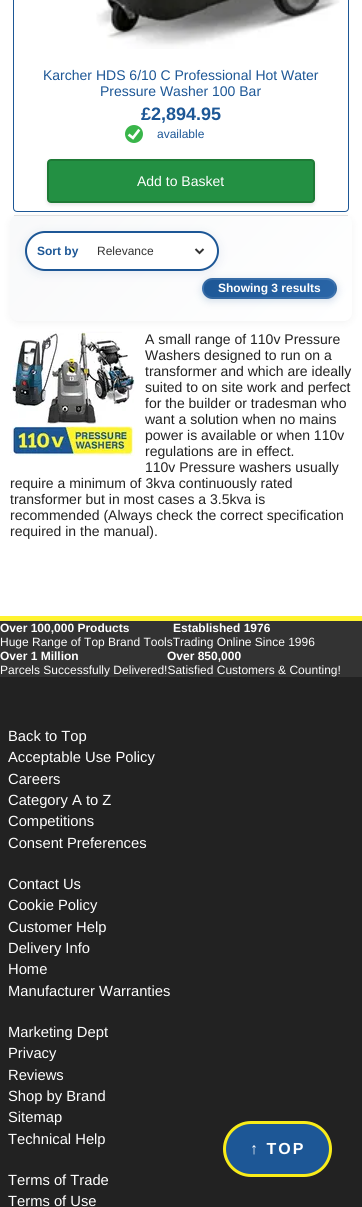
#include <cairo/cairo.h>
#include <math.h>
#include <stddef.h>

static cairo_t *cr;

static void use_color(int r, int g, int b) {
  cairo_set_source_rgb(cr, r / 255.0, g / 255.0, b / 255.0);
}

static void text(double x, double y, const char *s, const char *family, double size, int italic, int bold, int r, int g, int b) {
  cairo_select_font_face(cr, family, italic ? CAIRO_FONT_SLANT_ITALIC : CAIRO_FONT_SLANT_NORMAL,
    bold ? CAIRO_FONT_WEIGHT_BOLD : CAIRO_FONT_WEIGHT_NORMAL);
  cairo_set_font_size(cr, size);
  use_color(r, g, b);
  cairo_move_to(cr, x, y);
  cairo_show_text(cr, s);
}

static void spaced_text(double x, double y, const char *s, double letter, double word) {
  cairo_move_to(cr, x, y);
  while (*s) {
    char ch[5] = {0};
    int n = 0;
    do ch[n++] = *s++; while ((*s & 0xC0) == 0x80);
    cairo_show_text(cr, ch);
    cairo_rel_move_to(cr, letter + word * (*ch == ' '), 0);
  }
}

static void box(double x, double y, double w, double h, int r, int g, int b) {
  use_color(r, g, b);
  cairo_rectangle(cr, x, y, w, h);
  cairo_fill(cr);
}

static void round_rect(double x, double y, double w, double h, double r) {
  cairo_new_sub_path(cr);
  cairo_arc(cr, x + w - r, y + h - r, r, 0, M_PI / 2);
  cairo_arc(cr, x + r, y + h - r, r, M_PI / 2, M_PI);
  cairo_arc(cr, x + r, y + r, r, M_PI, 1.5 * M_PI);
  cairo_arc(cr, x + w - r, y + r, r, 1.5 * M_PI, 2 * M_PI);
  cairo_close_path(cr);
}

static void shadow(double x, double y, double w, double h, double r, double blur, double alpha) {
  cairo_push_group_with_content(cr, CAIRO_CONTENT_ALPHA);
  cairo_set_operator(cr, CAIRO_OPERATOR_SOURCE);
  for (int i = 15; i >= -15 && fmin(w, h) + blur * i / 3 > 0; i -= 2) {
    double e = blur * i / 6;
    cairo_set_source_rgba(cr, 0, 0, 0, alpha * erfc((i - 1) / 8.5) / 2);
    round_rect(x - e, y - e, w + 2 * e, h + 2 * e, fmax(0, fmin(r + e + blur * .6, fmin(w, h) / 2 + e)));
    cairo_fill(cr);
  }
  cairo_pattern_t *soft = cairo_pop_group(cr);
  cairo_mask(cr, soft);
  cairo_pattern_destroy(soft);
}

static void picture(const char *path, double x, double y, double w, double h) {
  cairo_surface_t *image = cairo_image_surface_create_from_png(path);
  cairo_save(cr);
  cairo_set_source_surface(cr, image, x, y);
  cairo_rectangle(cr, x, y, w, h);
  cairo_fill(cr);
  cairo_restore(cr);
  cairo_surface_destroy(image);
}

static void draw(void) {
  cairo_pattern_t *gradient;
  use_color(255, 255, 255);
  cairo_paint(cr);
  round_rect(13.5, -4.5, 335, 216, 3.5);
  use_color(29, 87, 150);
  cairo_set_line_width(cr, 1);
  cairo_stroke(cr);
  picture("img_01.png", 96, 0, 244, 49);
  picture("img_02.png", 125, 125, 18, 18);
  use_color(0, 0, 0);
  shadow(47, 161, 268, 44, 4, 2, 0.1);
  use_color(35, 144, 67);
  round_rect(48, 160, 266, 42, 3);
  cairo_fill_preserve(cr);
  use_color(30, 122, 54);
  cairo_set_line_width(cr, 2);
  cairo_stroke(cr);
  use_color(0, 0, 0);
  shadow(10, 217, 342, 106, 8, 4, 0.05);
  cairo_save(cr);
  round_rect(10, 215, 342, 106, 8);
  cairo_clip(cr);
  gradient = cairo_pattern_create_linear(69, 157, 293, 380);
  cairo_pattern_add_color_stop_rgba(gradient, 0, 0.973, 0.976, 0.98, 1);
  cairo_pattern_add_color_stop_rgba(gradient, 1, 1, 1, 1, 1);
  cairo_set_source(cr, gradient);
  cairo_pattern_destroy(gradient);
  cairo_new_path(cr);
  cairo_move_to(cr, 10, 216);
  cairo_line_to(cr, 352, 216);
  cairo_line_to(cr, 352, 313);
  cairo_curve_to(cr, 352, 317.5, 348.5, 321, 344, 321);
  cairo_line_to(cr, 18, 321);
  cairo_curve_to(cr, 13.5, 321, 10, 317.5, 10, 313);
  cairo_close_path(cr);
  cairo_fill(cr);
  cairo_restore(cr);
  box(14, 215, 334, 1, 224, 224, 224);
  use_color(29, 87, 150);
  shadow(202, 280, 135, 21, 10.5, 4, 0.2);
  cairo_save(cr);
  round_rect(202, 278, 135, 21, 10.5);
  cairo_clip(cr);
  gradient = cairo_pattern_create_linear(233, 235, 307, 309);
  cairo_pattern_add_color_stop_rgba(gradient, 0, 0.114, 0.341, 0.588, 1);
  cairo_pattern_add_color_stop_rgba(gradient, 1, 0.165, 0.4, 0.659, 1);
  cairo_set_source(cr, gradient);
  cairo_pattern_destroy(gradient);
  cairo_rectangle(cr, 204, 278, 131, 2);
  cairo_fill(cr);
  gradient = cairo_pattern_create_linear(102, 252, 176, 326);
  cairo_pattern_add_color_stop_rgba(gradient, 0, 0.114, 0.341, 0.588, 1);
  cairo_pattern_add_color_stop_rgba(gradient, 1, 0.165, 0.4, 0.659, 1);
  cairo_set_source(cr, gradient);
  cairo_pattern_destroy(gradient);
  cairo_rectangle(cr, 202, 280, 2, 17);
  cairo_fill(cr);
  gradient = cairo_pattern_create_linear(233, 252, 307, 326);
  cairo_pattern_add_color_stop_rgba(gradient, 0, 0.114, 0.341, 0.588, 1);
  cairo_pattern_add_color_stop_rgba(gradient, 1, 0.165, 0.4, 0.659, 1);
  cairo_set_source(cr, gradient);
  cairo_pattern_destroy(gradient);
  cairo_rectangle(cr, 204, 280, 131, 17);
  cairo_fill(cr);
  gradient = cairo_pattern_create_linear(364, 252, 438, 326);
  cairo_pattern_add_color_stop_rgba(gradient, 0, 0.114, 0.341, 0.588, 1);
  cairo_pattern_add_color_stop_rgba(gradient, 1, 0.165, 0.4, 0.659, 1);
  cairo_set_source(cr, gradient);
  cairo_pattern_destroy(gradient);
  cairo_rectangle(cr, 335, 280, 2, 17);
  cairo_fill(cr);
  gradient = cairo_pattern_create_linear(233, 269, 307, 343);
  cairo_pattern_add_color_stop_rgba(gradient, 0, 0.114, 0.341, 0.588, 1);
  cairo_pattern_add_color_stop_rgba(gradient, 1, 0.165, 0.4, 0.659, 1);
  cairo_set_source(cr, gradient);
  cairo_pattern_destroy(gradient);
  cairo_rectangle(cr, 204, 297, 131, 2);
  cairo_fill(cr);
  cairo_restore(cr);
  round_rect(203, 279, 133, 19, 9.5);
  cairo_set_source_rgba(cr, 1, 1, 1, 0.1);
  cairo_stroke(cr);
  use_color(29, 87, 150);
  shadow(25, 233, 194, 40, 20, 5, 0.1);
  use_color(255, 255, 255);
  round_rect(26, 232, 192, 38, 19);
  cairo_fill_preserve(cr);
  use_color(29, 87, 150);
  cairo_stroke(cr);
  cairo_new_path(cr);
  cairo_move_to(cr, 195.5, 249);
  cairo_line_to(cr, 199.5, 253);
  cairo_line_to(cr, 203.5, 249);
  use_color(51, 51, 51);
  cairo_stroke(cr);
  picture("img_03.png", 10, 331, 125, 125);
  box(0, 677, 362, 530, 34, 34, 34);
  box(0, 616, 362, 5, 255, 243, 47);
  box(0, 621, 362, 56, 51, 51, 51);
  use_color(29, 87, 150);
  round_rect(224.5, 1122.5, 106, 53, 26.5);
  cairo_fill_preserve(cr);
  use_color(248, 236, 26);
  cairo_set_line_width(cr, 3);
  cairo_stroke(cr);
  text(43, 80, "Karcher HDS 6/10 C Professional Hot Water", "Liberation Sans", 14, 0, 0, 29, 87, 150);
  text(100, 96, "Pressure Washer 100 Bar", "Liberation Sans", 14, 0, 0, 29, 87, 150);
  text(141, 120, "£2,894.95", "Liberation Sans", 18, 0, 1, 29, 87, 150);
  text(157, 138, "available", "Liberation Sans", 12, 0, 0, 29, 87, 150);
  text(137, 186, "Add to Basket", "Liberation Sans", 14, 0, 0, 255, 255, 255);
  text(37, 255, "Sort by", "Liberation Sans", 12, 0, 1, 29, 87, 150);
  text(97, 255, "Relevance", "Liberation Sans", 12, 0, 0, 51, 51, 51);
  text(218, 292, "Showing 3 results", "Liberation Sans", 12, 0, 1, 255, 255, 255);
  text(145, 344, "A small range of 110v Pressure", "Liberation Sans", 14, 0, 0, 34, 34, 34);
  text(145, 360, "Washers designed to run on a", "Liberation Sans", 14, 0, 0, 34, 34, 34);
  text(145, 376, "transformer and which are ideally", "Liberation Sans", 14, 0, 0, 34, 34, 34);
  text(145, 392, "suited to on site work and perfect", "Liberation Sans", 14, 0, 0, 34, 34, 34);
  text(145, 408, "for the builder or tradesman who", "Liberation Sans", 14, 0, 0, 34, 34, 34);
  text(145, 424, "want a solution when no mains", "Liberation Sans", 14, 0, 0, 34, 34, 34);
  text(145, 440, "power is available or when 110v", "Liberation Sans", 14, 0, 0, 34, 34, 34);
  text(145, 456, "regulations are in effect.", "Liberation Sans", 14, 0, 0, 34, 34, 34);
  text(145, 472, "110v Pressure washers usually", "Liberation Sans", 14, 0, 0, 34, 34, 34);
  text(10, 488, "require a minimum of 3kva continuously rated", "Liberation Sans", 14, 0, 0, 34, 34, 34);
  text(10, 504, "transformer but in most cases a 3.5kva is", "Liberation Sans", 14, 0, 0, 34, 34, 34);
  text(10, 520, "recommended (Always check the correct specification", "Liberation Sans", 14, 0, 0, 34, 34, 34);
  text(10, 536, "required in the manual).", "Liberation Sans", 14, 0, 0, 34, 34, 34);
  text(0, 632, "Over 100,000 Products", "Liberation Sans", 12, 0, 1, 255, 255, 255);
  text(0, 646, "Huge Range of Top Brand ToolsTrading Online Since 1996", "Liberation Sans", 12, 0, 0, 255, 255, 255);
  text(173, 632, "Established 1976", "Liberation Sans", 12, 0, 1, 255, 255, 255);
  text(0, 660, "Over 1 Million", "Liberation Sans", 12, 0, 1, 255, 255, 255);
  text(0, 674, "Parcels Successfully Delivered!Satisfied Customers & Counting!", "Liberation Sans", 12, 0, 0, 255, 255, 255);
  text(167, 660, "Over 850,000", "Liberation Sans", 12, 0, 1, 255, 255, 255);
  text(8, 741, "Back to Top", "Liberation Sans", 14.75, 0, 0, 255, 255, 255);
  text(8, 762, "Acceptable Use Policy", "Liberation Sans", 14.75, 0, 0, 255, 255, 255);
  text(8, 784, "Careers", "Liberation Sans", 14.75, 0, 0, 255, 255, 255);
  text(8, 805, "Category A to Z", "Liberation Sans", 14.75, 0, 0, 255, 255, 255);
  text(8, 826, "Competitions", "Liberation Sans", 14.75, 0, 0, 255, 255, 255);
  text(8, 848, "Consent Preferences", "Liberation Sans", 14.75, 0, 0, 255, 255, 255);
  text(8, 889, "Contact Us", "Liberation Sans", 14.75, 0, 0, 255, 255, 255);
  text(8, 910, "Cookie Policy", "Liberation Sans", 14.75, 0, 0, 255, 255, 255);
  text(8, 932, "Customer Help", "Liberation Sans", 14.75, 0, 0, 255, 255, 255);
  text(8, 953, "Delivery Info", "Liberation Sans", 14.75, 0, 0, 255, 255, 255);
  text(8, 974, "Home", "Liberation Sans", 14.75, 0, 0, 255, 255, 255);
  text(8, 996, "Manufacturer Warranties", "Liberation Sans", 14.75, 0, 0, 255, 255, 255);
  text(8, 1037, "Marketing Dept", "Liberation Sans", 14.75, 0, 0, 255, 255, 255);
  text(8, 1058, "Privacy", "Liberation Sans", 14.75, 0, 0, 255, 255, 255);
  text(8, 1080, "Reviews", "Liberation Sans", 14.75, 0, 0, 255, 255, 255);
  text(8, 1101, "Shop by Brand", "Liberation Sans", 14.75, 0, 0, 255, 255, 255);
  text(8, 1122, "Sitemap", "Liberation Sans", 14.75, 0, 0, 255, 255, 255);
  text(8, 1144, "Technical Help", "Liberation Sans", 14.75, 0, 0, 255, 255, 255);
  text(8, 1185, "Terms of Trade", "Liberation Sans", 14.75, 0, 0, 255, 255, 255);
  text(8, 1206, "Terms of Use", "Liberation Sans", 14.75, 0, 0, 255, 255, 255);
  cairo_select_font_face(cr, "Liberation Sans", CAIRO_FONT_SLANT_NORMAL, CAIRO_FONT_WEIGHT_BOLD);
  cairo_set_font_size(cr, 16);
  spaced_text(250, 1154, "↑ TOP", 2, 0);
}

int main(void) {
  cairo_surface_t *surface = cairo_image_surface_create(CAIRO_FORMAT_RGB24, 362, 1207);
  cr = cairo_create(surface);
  cairo_font_options_t *options = cairo_font_options_create();
  cairo_font_options_set_hint_metrics(options, CAIRO_HINT_METRICS_OFF);
  cairo_font_options_set_hint_style(options, CAIRO_HINT_STYLE_NONE);
  cairo_set_font_options(cr, options);
  cairo_set_miter_limit(cr, 4);
  draw();
  cairo_surface_write_to_png(surface, "out.png");
  cairo_font_options_destroy(options);
  cairo_destroy(cr);
  cairo_surface_destroy(surface);
  return 0;
}
